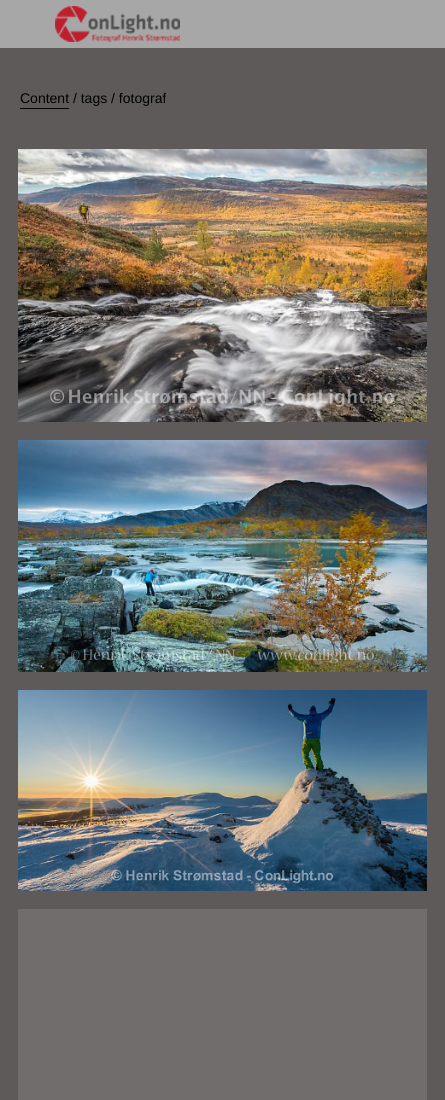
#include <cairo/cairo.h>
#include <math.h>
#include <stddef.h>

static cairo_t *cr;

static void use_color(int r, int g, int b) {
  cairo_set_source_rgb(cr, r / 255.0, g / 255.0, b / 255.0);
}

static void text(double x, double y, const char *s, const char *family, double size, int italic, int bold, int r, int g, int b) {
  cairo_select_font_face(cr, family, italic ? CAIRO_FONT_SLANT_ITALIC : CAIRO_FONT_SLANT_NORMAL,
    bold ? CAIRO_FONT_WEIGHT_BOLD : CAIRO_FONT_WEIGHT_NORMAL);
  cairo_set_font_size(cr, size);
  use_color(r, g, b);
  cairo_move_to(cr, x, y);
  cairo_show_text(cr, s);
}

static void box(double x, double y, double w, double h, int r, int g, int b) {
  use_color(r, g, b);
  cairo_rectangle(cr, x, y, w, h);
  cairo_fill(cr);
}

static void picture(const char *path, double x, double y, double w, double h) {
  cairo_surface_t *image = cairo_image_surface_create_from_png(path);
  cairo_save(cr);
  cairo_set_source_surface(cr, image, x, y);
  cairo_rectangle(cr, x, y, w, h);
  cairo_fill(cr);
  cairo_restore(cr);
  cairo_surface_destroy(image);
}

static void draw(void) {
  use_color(94, 90, 90);
  cairo_paint(cr);
  box(0, 0, 445, 48, 168, 167, 167);
  picture("img_01.png", 55, 6, 125, 36);
  box(20, 108, 49, 1, 0, 0, 0);
  picture("img_02.png", 18, 149, 409, 273);
  picture("img_03.png", 18, 440, 409, 232);
  picture("img_04.png", 18, 690, 409, 201);
  box(18, 909, 409, 191, 113, 109, 109);
  text(20, 103, "Content / tags / fotograf", "Liberation Sans", 14, 0, 0, 0, 0, 0);
}

int main(void) {
  cairo_surface_t *surface = cairo_image_surface_create(CAIRO_FORMAT_RGB24, 445, 1100);
  cr = cairo_create(surface);
  cairo_font_options_t *options = cairo_font_options_create();
  cairo_font_options_set_hint_metrics(options, CAIRO_HINT_METRICS_OFF);
  cairo_font_options_set_hint_style(options, CAIRO_HINT_STYLE_NONE);
  cairo_set_font_options(cr, options);
  cairo_set_miter_limit(cr, 4);
  draw();
  cairo_surface_write_to_png(surface, "out.png");
  cairo_font_options_destroy(options);
  cairo_destroy(cr);
  cairo_surface_destroy(surface);
  return 0;
}
